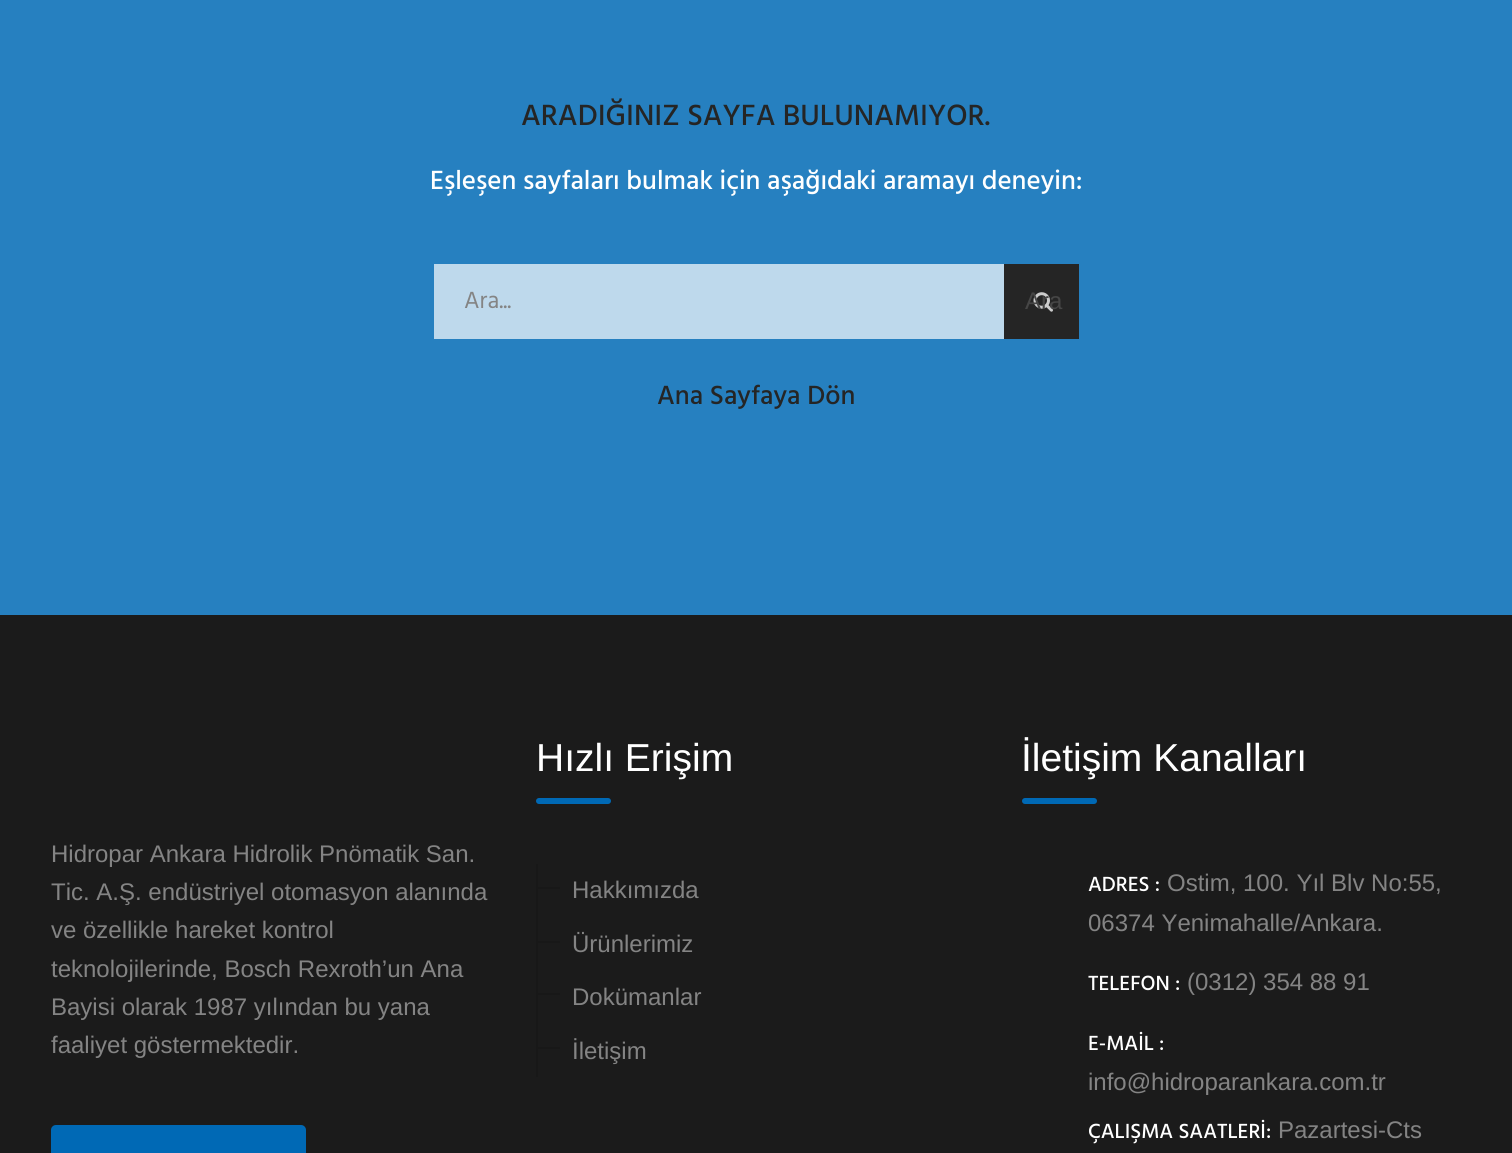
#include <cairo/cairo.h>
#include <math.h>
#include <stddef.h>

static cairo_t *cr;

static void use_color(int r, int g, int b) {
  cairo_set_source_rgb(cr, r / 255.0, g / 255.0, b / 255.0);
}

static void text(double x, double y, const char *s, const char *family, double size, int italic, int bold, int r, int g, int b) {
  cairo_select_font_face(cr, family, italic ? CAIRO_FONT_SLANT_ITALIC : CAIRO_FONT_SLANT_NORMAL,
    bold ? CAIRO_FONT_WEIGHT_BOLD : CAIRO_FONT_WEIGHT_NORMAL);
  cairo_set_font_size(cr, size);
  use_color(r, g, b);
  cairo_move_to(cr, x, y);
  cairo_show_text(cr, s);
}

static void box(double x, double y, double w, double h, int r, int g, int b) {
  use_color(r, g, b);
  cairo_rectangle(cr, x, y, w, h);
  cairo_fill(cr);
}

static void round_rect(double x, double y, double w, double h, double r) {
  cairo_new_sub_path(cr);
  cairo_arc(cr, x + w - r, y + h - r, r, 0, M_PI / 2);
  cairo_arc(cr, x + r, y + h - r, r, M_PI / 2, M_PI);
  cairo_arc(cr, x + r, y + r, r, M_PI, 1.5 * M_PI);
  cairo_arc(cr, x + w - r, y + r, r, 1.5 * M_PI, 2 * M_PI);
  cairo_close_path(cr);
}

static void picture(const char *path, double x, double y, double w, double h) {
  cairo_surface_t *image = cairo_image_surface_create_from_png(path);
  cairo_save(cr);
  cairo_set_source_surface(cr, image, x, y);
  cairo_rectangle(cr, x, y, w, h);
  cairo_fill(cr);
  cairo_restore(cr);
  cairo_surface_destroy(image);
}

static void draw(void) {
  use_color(38, 128, 192);
  cairo_paint(cr);
  box(434, 264, 570, 75, 190, 217, 236);
  box(1004, 264, 75, 75, 37, 37, 37);
  picture("img_01.png", 1033, 292, 20, 20);
  box(0, 615, 1512, 538, 27, 27, 27);
  use_color(0, 105, 181);
  round_rect(51, 1125, 255, 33, 5);
  cairo_fill(cr);
  round_rect(536, 798, 75, 6, 3);
  cairo_fill(cr);
  box(536, 864, 2, 213, 24, 24, 24);
  box(537, 887, 23, 2, 24, 24, 24);
  box(537, 941, 23, 2, 24, 24, 24);
  box(537, 993, 23, 2, 24, 24, 24);
  box(537, 1047, 23, 2, 24, 24, 24);
  use_color(0, 105, 181);
  round_rect(1022, 798, 75, 6, 3);
  cairo_fill(cr);
  text(521, 125, "ARADIĞINIZ SAYFA BULUNAMIYOR.", "Hind Medium", 30, 0, 0, 37, 37, 37);
  text(430, 189, "Eşleşen sayfaları bulmak için aşağıdaki aramayı deneyin:", "Hind Medium", 27, 0, 0, 255, 255, 255);
  text(464, 308, "Ara...", "Hind", 24, 0, 0, 132, 132, 132);
  text(1025, 309, "Ara", "Liberation Sans", 24, 0, 0, 70, 70, 70);
  text(657, 404, "Ana Sayfaya Dön", "Hind Medium", 27, 0, 0, 37, 37, 37);
  text(51, 862, "Hidropar Ankara Hidrolik Pnömatik San.", "Liberation Sans", 24, 0, 0, 132, 132, 132);
  text(51, 900, "Tic. A.Ş. endüstriyel otomasyon alanında", "Liberation Sans", 24, 0, 0, 132, 132, 132);
  text(51, 938, "ve özellikle hareket kontrol", "Liberation Sans", 24, 0, 0, 132, 132, 132);
  text(51, 977, "teknolojilerinde, Bosch Rexroth’un Ana", "Liberation Sans", 24, 0, 0, 132, 132, 132);
  text(51, 1015, "Bayisi olarak 1987 yılından bu yana", "Liberation Sans", 24, 0, 0, 132, 132, 132);
  text(51, 1053, "faaliyet göstermektedir.", "Liberation Sans", 24, 0, 0, 132, 132, 132);
  text(536, 771, "Hızlı Erişim", "Liberation Sans", 39, 0, 0, 255, 255, 255);
  text(572, 898, "Hakkımızda", "Liberation Sans", 24, 0, 0, 132, 132, 132);
  text(572, 952, "Ürünlerimiz", "Liberation Sans", 24, 0, 0, 132, 132, 132);
  text(572, 1005, "Dokümanlar", "Liberation Sans", 24, 0, 0, 132, 132, 132);
  text(572, 1059, "İletişim", "Liberation Sans", 24, 0, 0, 132, 132, 132);
  text(1021, 771, "İletişim Kanalları", "Liberation Sans", 39, 0, 0, 255, 255, 255);
  text(1088, 891, "ADRES :", "Hind Medium", 21, 0, 0, 255, 255, 255);
  text(1167, 891, "Ostim, 100. Yıl Blv No:55,", "Liberation Sans", 24, 0, 0, 132, 132, 132);
  text(1088, 931, "06374 Yenimahalle/Ankara.", "Liberation Sans", 24, 0, 0, 132, 132, 132);
  text(1088, 990, "TELEFON :", "Hind Medium", 21, 0, 0, 255, 255, 255);
  text(1187, 990, "(0312) 354 88 91", "Liberation Sans", 24, 0, 0, 132, 132, 132);
  text(1088, 1050, "E-MAİL :", "Hind Medium", 21, 0, 0, 255, 255, 255);
  text(1088, 1090, "info@hidroparankara.com.tr", "Liberation Sans", 24, 0, 0, 132, 132, 132);
  text(1088, 1138, "ÇALIŞMA SAATLERİ:", "Hind Medium", 21, 0, 0, 255, 255, 255);
  text(1278, 1138, "Pazartesi-Cts", "Liberation Sans", 24, 0, 0, 132, 132, 132);
}

int main(void) {
  cairo_surface_t *surface = cairo_image_surface_create(CAIRO_FORMAT_RGB24, 1512, 1153);
  cr = cairo_create(surface);
  cairo_font_options_t *options = cairo_font_options_create();
  cairo_font_options_set_hint_metrics(options, CAIRO_HINT_METRICS_OFF);
  cairo_font_options_set_hint_style(options, CAIRO_HINT_STYLE_NONE);
  cairo_set_font_options(cr, options);
  cairo_set_miter_limit(cr, 4);
  draw();
  cairo_surface_write_to_png(surface, "out.png");
  cairo_font_options_destroy(options);
  cairo_destroy(cr);
  cairo_surface_destroy(surface);
  return 0;
}
